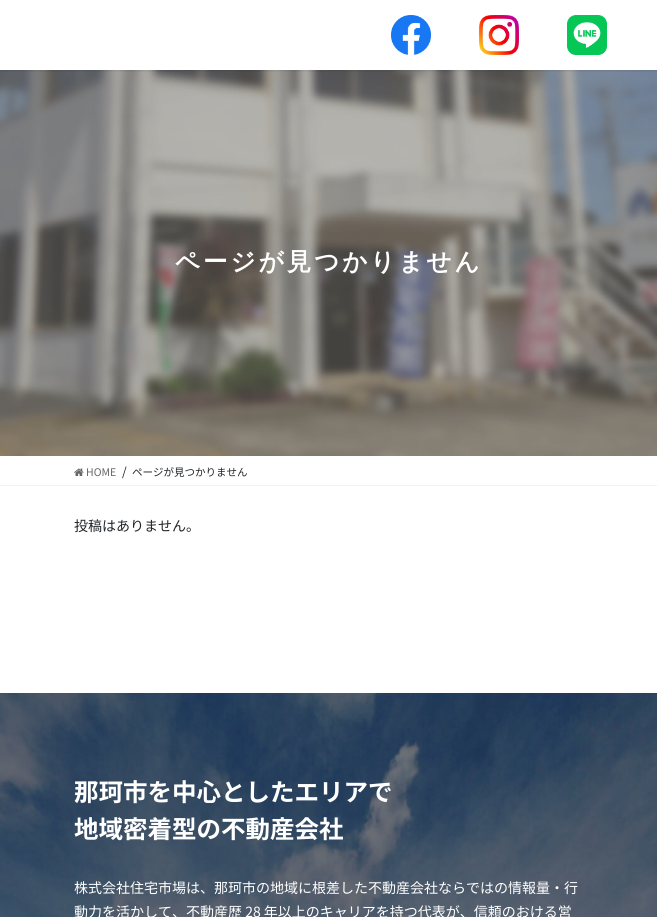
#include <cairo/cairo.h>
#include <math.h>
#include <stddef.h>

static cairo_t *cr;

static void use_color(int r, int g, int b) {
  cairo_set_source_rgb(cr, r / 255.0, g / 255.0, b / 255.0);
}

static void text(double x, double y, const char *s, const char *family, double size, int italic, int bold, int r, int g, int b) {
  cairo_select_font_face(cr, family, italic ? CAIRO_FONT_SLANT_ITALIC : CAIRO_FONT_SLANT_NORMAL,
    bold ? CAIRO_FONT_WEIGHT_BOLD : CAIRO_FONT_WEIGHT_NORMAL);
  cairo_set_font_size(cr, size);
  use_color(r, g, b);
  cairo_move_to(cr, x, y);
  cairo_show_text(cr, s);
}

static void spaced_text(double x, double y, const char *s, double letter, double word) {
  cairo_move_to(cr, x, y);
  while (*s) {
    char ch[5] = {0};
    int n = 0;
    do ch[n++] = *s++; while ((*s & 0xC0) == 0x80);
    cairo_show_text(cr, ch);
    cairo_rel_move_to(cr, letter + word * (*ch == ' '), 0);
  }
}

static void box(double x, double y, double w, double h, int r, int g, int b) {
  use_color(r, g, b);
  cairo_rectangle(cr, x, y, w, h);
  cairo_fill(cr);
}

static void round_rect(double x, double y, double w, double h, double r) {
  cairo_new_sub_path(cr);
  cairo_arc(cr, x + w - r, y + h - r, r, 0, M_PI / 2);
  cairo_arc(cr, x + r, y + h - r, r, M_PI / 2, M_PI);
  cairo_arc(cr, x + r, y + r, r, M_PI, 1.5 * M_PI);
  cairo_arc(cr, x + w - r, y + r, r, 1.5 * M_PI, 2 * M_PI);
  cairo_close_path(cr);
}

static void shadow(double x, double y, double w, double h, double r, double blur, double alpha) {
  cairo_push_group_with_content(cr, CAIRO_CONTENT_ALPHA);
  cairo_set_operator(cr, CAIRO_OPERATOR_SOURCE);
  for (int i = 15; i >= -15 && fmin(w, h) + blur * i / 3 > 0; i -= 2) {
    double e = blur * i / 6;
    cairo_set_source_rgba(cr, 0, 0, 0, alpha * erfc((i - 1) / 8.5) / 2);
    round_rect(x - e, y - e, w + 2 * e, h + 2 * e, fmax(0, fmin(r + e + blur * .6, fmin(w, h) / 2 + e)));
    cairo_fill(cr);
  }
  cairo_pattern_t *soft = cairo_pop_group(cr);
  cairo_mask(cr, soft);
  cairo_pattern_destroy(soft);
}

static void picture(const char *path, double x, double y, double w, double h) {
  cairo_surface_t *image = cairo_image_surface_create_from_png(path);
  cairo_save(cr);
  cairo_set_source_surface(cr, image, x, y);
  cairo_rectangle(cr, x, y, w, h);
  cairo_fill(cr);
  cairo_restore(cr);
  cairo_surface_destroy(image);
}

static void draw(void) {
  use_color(255, 255, 255);
  cairo_paint(cr);
  picture("img_04.png", 0, 70, 657, 386);
  cairo_save(cr);
  cairo_rectangle(cr, 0, 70, 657, 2);
  cairo_clip(cr);
  use_color(0, 0, 0);
  shadow(0, 1, 657, 70, 0, 1.5, 0.1);
  cairo_restore(cr);
  picture("img_01.png", 391, 15, 40, 40);
  picture("img_02.png", 479, 15, 40, 40);
  picture("img_03.png", 567, 15, 40, 40);
  box(0, 485, 657, 1, 242, 242, 242);
  picture("img_05.png", 74, 468, 10, 8);
  picture("img_06.png", 0, 693, 657, 224);
  cairo_select_font_face(cr, "WenQuanYi Zen Hei", CAIRO_FONT_SLANT_NORMAL, CAIRO_FONT_WEIGHT_BOLD);
  cairo_set_font_size(cr, 24.5);
  use_color(255, 255, 255);
  spaced_text(175, 270, "ページが見つかりません", 3, 0);
  text(86, 476, "HOME", "Noto Sans JP", 10.5, 0, 0, 102, 102, 102);
  text(122, 476, "/", "Noto Sans JP", 12, 0, 0, 33, 37, 41);
  text(132, 476, "ページが見つかりません", "Noto Sans JP", 10.5, 0, 0, 33, 37, 41);
  text(74, 531, "投稿はありません。", "Noto Sans JP", 14, 0, 0, 33, 37, 41);
  text(74, 801, "那珂市を中心としたエリアで", "Noto Sans JP", 24.5, 0, 1, 255, 255, 255);
  text(74, 838, "地域密着型の不動産会社", "Noto Sans JP", 24.5, 0, 1, 255, 255, 255);
  text(74, 893, "株式会社住宅市場は、那珂市の地域に根差した不動産会社ならではの情報量・行", "Noto Sans JP", 14, 0, 0, 255, 255, 255);
  text(74, 917, "動力を活かして、不動産歴 28 年以上のキャリアを持つ代表が、信頼のおける営", "Noto Sans JP", 14, 0, 0, 255, 255, 255);
}

int main(void) {
  cairo_surface_t *surface = cairo_image_surface_create(CAIRO_FORMAT_RGB24, 657, 917);
  cr = cairo_create(surface);
  cairo_font_options_t *options = cairo_font_options_create();
  cairo_font_options_set_hint_metrics(options, CAIRO_HINT_METRICS_OFF);
  cairo_font_options_set_hint_style(options, CAIRO_HINT_STYLE_NONE);
  cairo_set_font_options(cr, options);
  cairo_set_miter_limit(cr, 4);
  draw();
  cairo_surface_write_to_png(surface, "out.png");
  cairo_font_options_destroy(options);
  cairo_destroy(cr);
  cairo_surface_destroy(surface);
  return 0;
}
